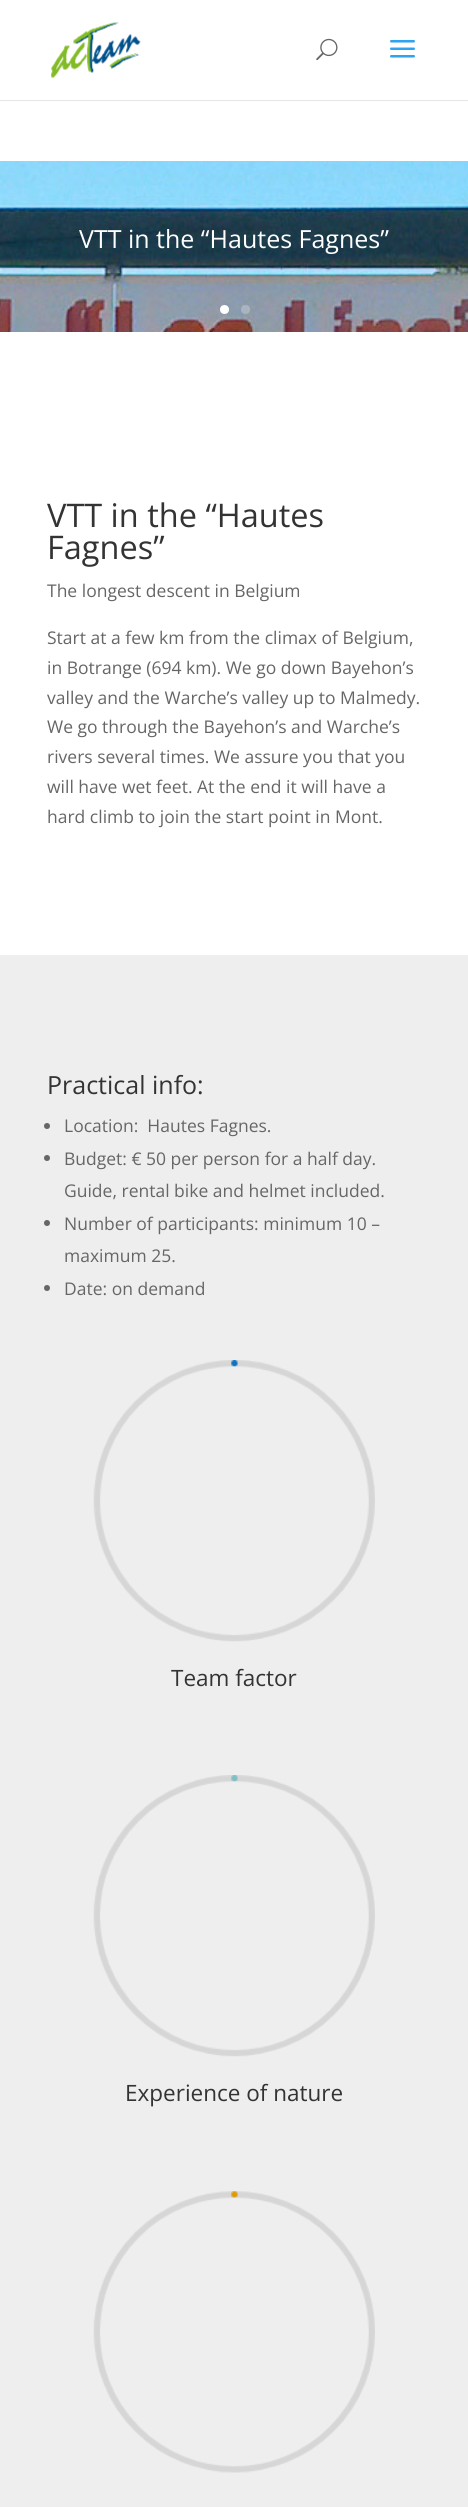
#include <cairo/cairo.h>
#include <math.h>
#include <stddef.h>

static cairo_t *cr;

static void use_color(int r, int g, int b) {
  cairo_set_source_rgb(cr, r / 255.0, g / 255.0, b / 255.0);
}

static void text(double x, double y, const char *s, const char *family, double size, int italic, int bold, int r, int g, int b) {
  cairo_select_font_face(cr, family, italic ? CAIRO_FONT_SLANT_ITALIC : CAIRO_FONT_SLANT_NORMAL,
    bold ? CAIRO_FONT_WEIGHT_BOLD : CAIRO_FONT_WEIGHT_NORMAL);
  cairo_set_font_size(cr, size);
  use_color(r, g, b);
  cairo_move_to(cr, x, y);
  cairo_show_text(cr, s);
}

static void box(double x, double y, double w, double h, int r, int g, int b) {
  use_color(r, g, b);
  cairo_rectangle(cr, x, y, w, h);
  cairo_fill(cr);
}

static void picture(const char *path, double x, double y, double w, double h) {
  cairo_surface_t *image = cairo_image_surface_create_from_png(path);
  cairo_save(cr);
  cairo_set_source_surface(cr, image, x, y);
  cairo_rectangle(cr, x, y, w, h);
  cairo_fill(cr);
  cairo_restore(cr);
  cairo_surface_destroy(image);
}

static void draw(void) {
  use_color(255, 255, 255);
  cairo_paint(cr);
  use_color(230, 230, 230);
  cairo_new_path(cr);
  cairo_move_to(cr, 0, 100);
  cairo_line_to(cr, 0, 101);
  cairo_line_to(cr, 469, 101);
  cairo_line_to(cr, 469, 1);
  cairo_line_to(cr, 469, 100);
  cairo_close_path(cr);
  cairo_fill(cr);
  picture("img_01.png", 51, 22, 90, 56);
  picture("img_02.png", 316, 38, 22, 23);
  picture("img_03.png", 390, 40, 25, 18);
  picture("img_04.png", 0, 161, 468, 171);
  use_color(255, 255, 255);
  cairo_arc(cr, 224.5, 309.5, 4.5, 0, 2 * M_PI);
  cairo_fill(cr);
  cairo_set_source_rgba(cr, 1, 1, 1, 0.25);
  cairo_arc(cr, 245.5, 309.5, 4.5, 0, 2 * M_PI);
  cairo_fill(cr);
  box(0, 955, 468, 1552, 238, 238, 238);
  use_color(102, 102, 102);
  cairo_arc(cr, 47, 1126, 3, 0, 2 * M_PI);
  cairo_fill(cr);
  cairo_arc(cr, 47, 1158, 3, 0, 2 * M_PI);
  cairo_fill(cr);
  cairo_arc(cr, 47, 1223, 3, 0, 2 * M_PI);
  cairo_fill(cr);
  cairo_arc(cr, 47, 1288, 3, 0, 2 * M_PI);
  cairo_fill(cr);
  picture("img_05.png", 93, 1360, 282, 282);
  picture("img_06.png", 93, 1775, 282, 282);
  picture("img_07.png", 93, 2191, 282, 282);
  text(79, 248, "VTT in the “Hautes Fagnes”", "Open Sans", 25, 0, 0, 255, 255, 255);
  text(47, 527, "VTT in the “Hautes", "Open Sans", 32.5, 0, 0, 51, 51, 51);
  text(47, 559, "Fagnes”", "Open Sans", 32.5, 0, 0, 51, 51, 51);
  text(47, 597, "The longest descent in Belgium", "Open Sans", 17.5, 0, 0, 102, 102, 102);
  text(47, 644, "Start at a few km from the climax of Belgium,", "Open Sans", 17.5, 0, 0, 102, 102, 102);
  text(47, 674, "in Botrange (694 km). We go down Bayehon’s", "Open Sans", 17.5, 0, 0, 102, 102, 102);
  text(47, 704, "valley and the Warche’s valley up to Malmedy.", "Open Sans", 17.5, 0, 0, 102, 102, 102);
  text(47, 733, "We go through the Bayehon’s and Warche’s", "Open Sans", 17.5, 0, 0, 102, 102, 102);
  text(47, 763, "rivers several times. We assure you that you", "Open Sans", 17.5, 0, 0, 102, 102, 102);
  text(47, 793, "will have wet feet. At the end it will have a", "Open Sans", 17.5, 0, 0, 102, 102, 102);
  text(47, 823, "hard climb to join the start point in Mont.", "Open Sans", 17.5, 0, 0, 102, 102, 102);
  text(47, 1094, "Practical info:", "Open Sans", 25, 0, 0, 51, 51, 51);
  text(64, 1132, "Location:  Hautes Fagnes.", "Open Sans", 17.5, 0, 0, 102, 102, 102);
  text(64, 1165, "Budget: € 50 per person for a half day.", "Open Sans", 17.5, 0, 0, 102, 102, 102);
  text(64, 1197, "Guide, rental bike and helmet included.", "Open Sans", 17.5, 0, 0, 102, 102, 102);
  text(64, 1230, "Number of participants: minimum 10 –", "Open Sans", 17.5, 0, 0, 102, 102, 102);
  text(64, 1262, "maximum 25.", "Open Sans", 17.5, 0, 0, 102, 102, 102);
  text(64, 1295, "Date: on demand", "Open Sans", 17.5, 0, 0, 102, 102, 102);
  text(171, 1686, "Team factor", "Open Sans", 22.5, 0, 0, 51, 51, 51);
  text(125, 2101, "Experience of nature", "Open Sans", 22.5, 0, 0, 51, 51, 51);
}

int main(void) {
  cairo_surface_t *surface = cairo_image_surface_create(CAIRO_FORMAT_RGB24, 468, 2507);
  cr = cairo_create(surface);
  cairo_font_options_t *options = cairo_font_options_create();
  cairo_font_options_set_hint_metrics(options, CAIRO_HINT_METRICS_OFF);
  cairo_font_options_set_hint_style(options, CAIRO_HINT_STYLE_NONE);
  cairo_set_font_options(cr, options);
  cairo_set_miter_limit(cr, 4);
  draw();
  cairo_surface_write_to_png(surface, "out.png");
  cairo_font_options_destroy(options);
  cairo_destroy(cr);
  cairo_surface_destroy(surface);
  return 0;
}
